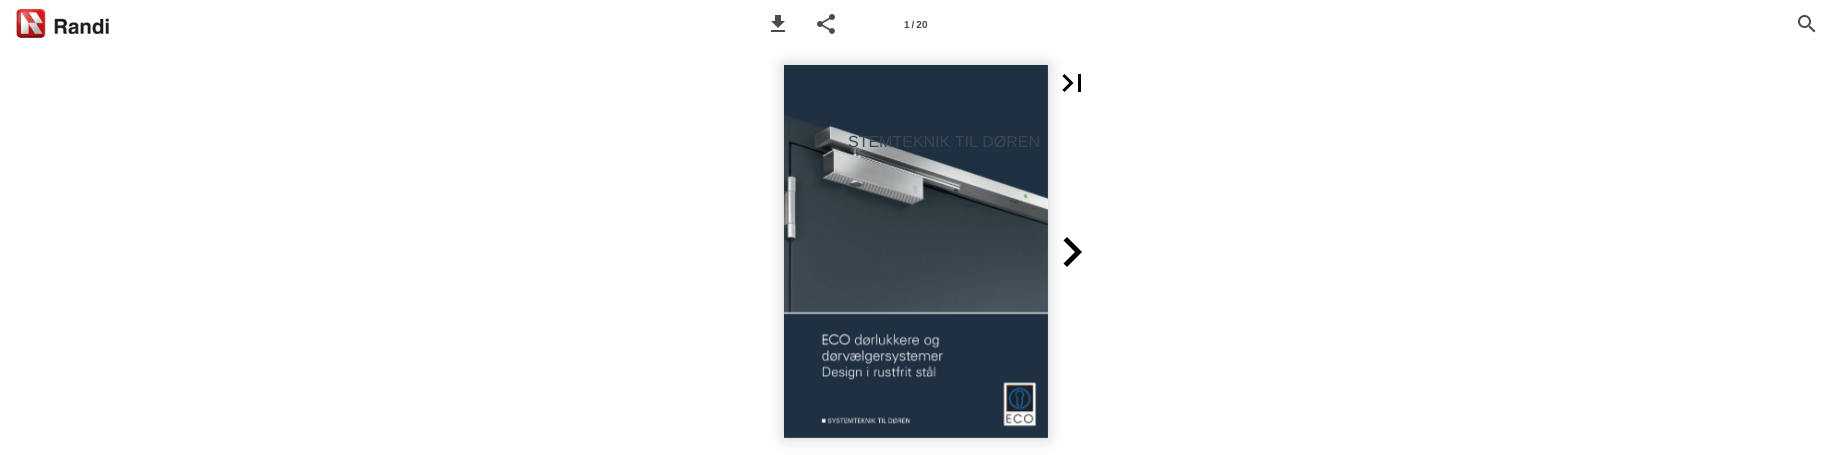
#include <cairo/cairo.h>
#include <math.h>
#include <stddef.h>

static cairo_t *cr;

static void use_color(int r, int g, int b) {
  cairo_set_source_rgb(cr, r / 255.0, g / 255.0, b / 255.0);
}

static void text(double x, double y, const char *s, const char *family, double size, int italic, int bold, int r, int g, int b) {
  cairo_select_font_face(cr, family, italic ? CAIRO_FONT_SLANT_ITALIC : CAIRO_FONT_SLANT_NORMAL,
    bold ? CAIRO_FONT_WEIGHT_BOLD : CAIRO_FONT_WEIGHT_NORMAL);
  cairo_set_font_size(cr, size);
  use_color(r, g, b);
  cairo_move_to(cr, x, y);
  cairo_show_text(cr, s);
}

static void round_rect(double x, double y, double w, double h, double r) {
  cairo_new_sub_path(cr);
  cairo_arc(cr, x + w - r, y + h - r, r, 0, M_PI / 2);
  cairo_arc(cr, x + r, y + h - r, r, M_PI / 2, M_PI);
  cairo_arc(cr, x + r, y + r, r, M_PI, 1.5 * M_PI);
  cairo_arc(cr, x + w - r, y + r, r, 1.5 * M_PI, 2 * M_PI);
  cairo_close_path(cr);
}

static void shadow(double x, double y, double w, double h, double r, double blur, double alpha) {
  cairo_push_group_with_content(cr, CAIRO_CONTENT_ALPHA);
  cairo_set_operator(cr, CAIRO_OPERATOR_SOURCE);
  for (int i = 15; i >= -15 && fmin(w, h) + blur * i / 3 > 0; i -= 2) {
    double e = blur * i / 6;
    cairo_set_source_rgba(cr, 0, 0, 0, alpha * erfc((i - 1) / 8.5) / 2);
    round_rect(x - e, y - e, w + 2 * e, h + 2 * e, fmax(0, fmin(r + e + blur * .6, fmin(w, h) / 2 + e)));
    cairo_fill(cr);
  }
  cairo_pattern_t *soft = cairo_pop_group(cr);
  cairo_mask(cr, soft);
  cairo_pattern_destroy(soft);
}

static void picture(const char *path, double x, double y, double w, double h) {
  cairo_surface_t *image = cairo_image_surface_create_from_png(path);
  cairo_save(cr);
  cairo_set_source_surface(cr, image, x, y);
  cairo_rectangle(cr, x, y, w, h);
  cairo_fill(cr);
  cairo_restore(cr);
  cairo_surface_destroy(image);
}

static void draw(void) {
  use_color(255, 255, 255);
  cairo_paint(cr);
  picture("img_01.png", 15, 6, 95, 35);
  picture("img_02.png", 771, 15, 14, 17);
  picture("img_03.png", 817, 14, 18, 20);
  picture("img_04.png", 1798, 15, 18, 18);
  use_color(0, 0, 0);
  shadow(784, 65, 264, 373, 0, 8, 0.2);
  picture("img_05.png", 784, 65, 264, 373);
  picture("img_06.png", 1062, 74, 19, 18);
  use_color(0, 0, 0);
  cairo_new_path(cr);
  cairo_move_to(cr, 1067, 237);
  cairo_line_to(cr, 1063.5, 240.5);
  cairo_line_to(cr, 1075, 252);
  cairo_line_to(cr, 1063.5, 263.5);
  cairo_line_to(cr, 1067, 267);
  cairo_line_to(cr, 1082, 252);
  cairo_close_path(cr);
  cairo_fill(cr);
  text(904, 28, "1 / 20", "Liberation Sans", 10, 0, 1, 74, 74, 74);
  text(848, 147, "STEMTEKNIK TIL DØREN", "Liberation Sans", 16, 0, 0, 57, 70, 83);
}

int main(void) {
  cairo_surface_t *surface = cairo_image_surface_create(CAIRO_FORMAT_RGB24, 1831, 455);
  cr = cairo_create(surface);
  cairo_font_options_t *options = cairo_font_options_create();
  cairo_font_options_set_hint_metrics(options, CAIRO_HINT_METRICS_OFF);
  cairo_font_options_set_hint_style(options, CAIRO_HINT_STYLE_NONE);
  cairo_set_font_options(cr, options);
  cairo_set_miter_limit(cr, 4);
  draw();
  cairo_surface_write_to_png(surface, "out.png");
  cairo_font_options_destroy(options);
  cairo_destroy(cr);
  cairo_surface_destroy(surface);
  return 0;
}
